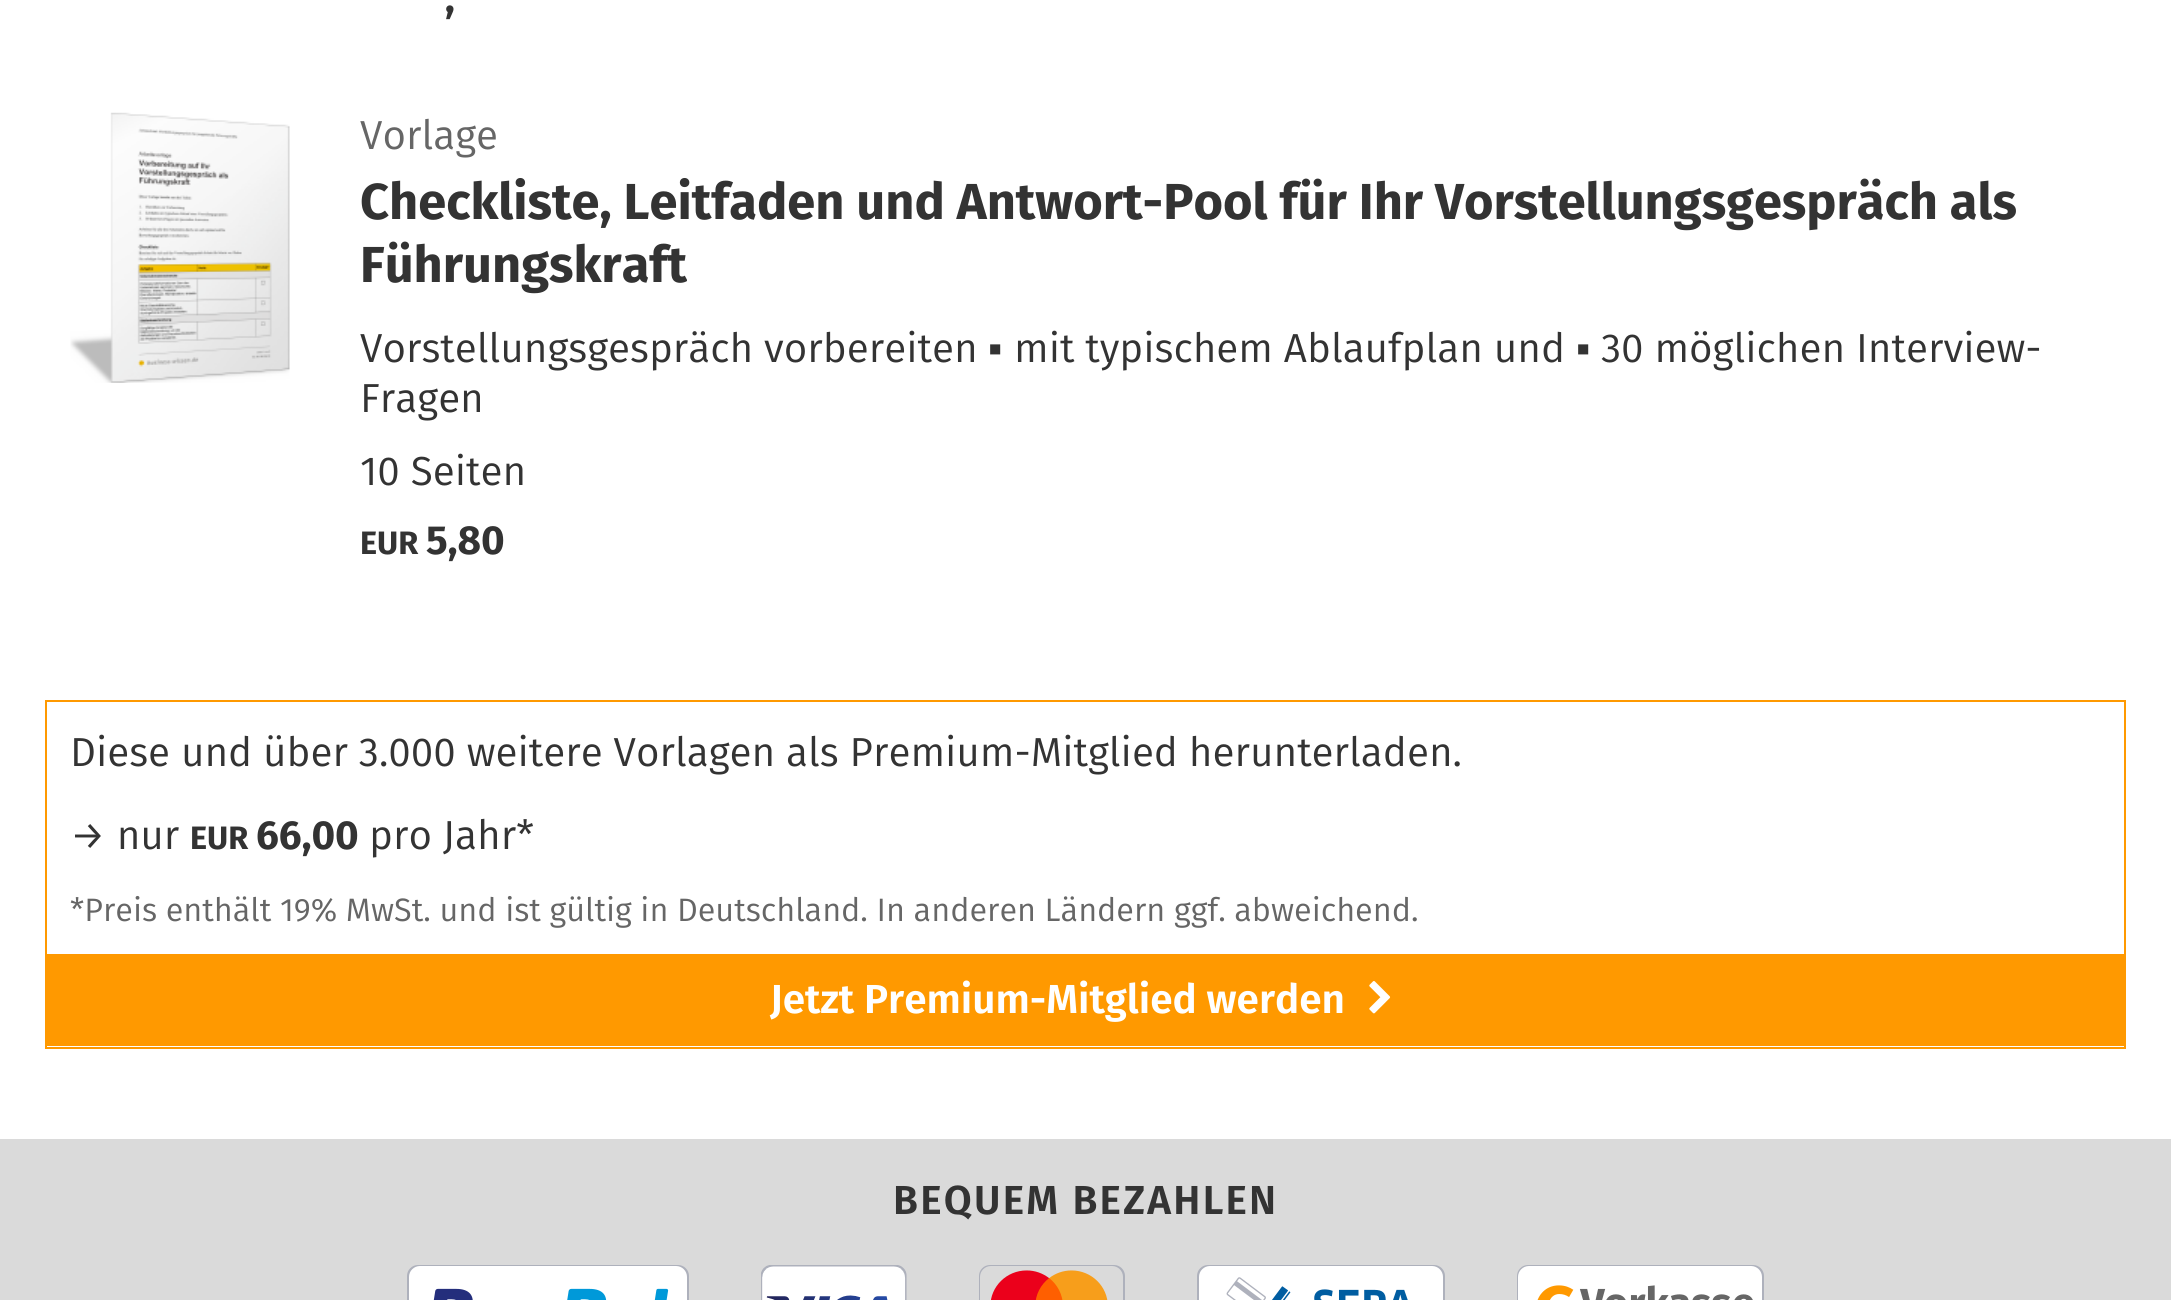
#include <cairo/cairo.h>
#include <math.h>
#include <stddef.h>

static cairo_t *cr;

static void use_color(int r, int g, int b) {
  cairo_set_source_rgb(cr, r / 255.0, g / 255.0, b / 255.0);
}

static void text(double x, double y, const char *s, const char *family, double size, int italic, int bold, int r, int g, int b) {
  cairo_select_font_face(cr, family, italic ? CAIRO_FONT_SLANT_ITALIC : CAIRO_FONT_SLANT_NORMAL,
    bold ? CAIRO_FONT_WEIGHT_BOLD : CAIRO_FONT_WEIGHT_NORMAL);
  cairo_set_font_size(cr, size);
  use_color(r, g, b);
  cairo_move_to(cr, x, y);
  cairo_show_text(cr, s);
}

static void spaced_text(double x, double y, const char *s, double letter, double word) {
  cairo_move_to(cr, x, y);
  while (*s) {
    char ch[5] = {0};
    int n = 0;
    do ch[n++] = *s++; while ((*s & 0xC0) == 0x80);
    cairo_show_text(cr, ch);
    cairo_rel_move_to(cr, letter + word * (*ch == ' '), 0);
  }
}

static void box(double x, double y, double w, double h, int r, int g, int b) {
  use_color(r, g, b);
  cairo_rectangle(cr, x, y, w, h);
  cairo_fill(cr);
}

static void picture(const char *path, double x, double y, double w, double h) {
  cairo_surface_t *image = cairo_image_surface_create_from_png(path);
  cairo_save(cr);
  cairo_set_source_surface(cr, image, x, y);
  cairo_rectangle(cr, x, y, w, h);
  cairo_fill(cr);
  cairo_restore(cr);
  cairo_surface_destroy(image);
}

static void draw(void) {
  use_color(255, 255, 255);
  cairo_paint(cr);
  picture("img_01.png", 70, 112, 220, 271);
  cairo_rectangle(cr, 46, 701, 2079, 347);
  use_color(255, 153, 0);
  cairo_stroke(cr);
  box(47, 954, 2077, 92, 255, 153, 0);
  picture("img_02.png", 1369, 981, 22, 33);
  box(0, 1139, 2171, 161, 218, 218, 218);
  picture("img_03.png", 407, 1265, 282, 35);
  picture("img_04.png", 761, 1265, 146, 35);
  picture("img_05.png", 979, 1265, 146, 35);
  picture("img_06.png", 1197, 1265, 248, 35);
  picture("img_07.png", 1517, 1265, 247, 35);
  text(445, 12, ",", "Fira Sans", 40.5, 0, 1, 51, 51, 51);
  text(360, 149, "Vorlage", "Fira Sans", 40.5, 0, 0, 102, 102, 102);
  text(360, 219, "Checkliste, Leitfaden und Antwort-Pool für Ihr Vorstellungsgespräch als", "Fira Sans", 50.6, 0, 1, 51, 51, 51);
  text(360, 282, "Führungskraft", "Fira Sans", 50.6, 0, 1, 51, 51, 51);
  text(360, 362, "Vorstellungsgespräch vorbereiten", "Fira Sans", 40.5, 0, 0, 51, 51, 51);
  text(988, 362, "▪", "Liberation Sans", 40.5, 0, 0, 51, 51, 51);
  text(1014, 362, "mit typischem Ablaufplan und", "Fira Sans", 40.5, 0, 0, 51, 51, 51);
  text(1576, 362, "▪", "Liberation Sans", 40.5, 0, 0, 51, 51, 51);
  text(1601, 362, "30 möglichen Interview-", "Fira Sans", 40.5, 0, 0, 51, 51, 51);
  text(360, 412, "Fragen", "Fira Sans", 40.5, 0, 0, 51, 51, 51);
  text(360, 485, "10 Seiten", "Fira Sans", 40.5, 0, 0, 51, 51, 51);
  text(360, 554, "EUR", "Fira Sans", 32.4, 0, 1, 51, 51, 51);
  text(426, 554, "5,80", "Fira Sans", 40.5, 0, 1, 51, 51, 51);
  text(70, 766, "Diese und über 3.000 weitere Vorlagen als Premium-Mitglied herunterladen.", "Fira Sans", 40.5, 0, 0, 51, 51, 51);
  text(70, 849, "→ nur", "Fira Sans", 40.5, 0, 0, 51, 51, 51);
  text(190, 849, "EUR", "Fira Sans", 32.4, 0, 1, 51, 51, 51);
  text(256, 849, "66,00", "Fira Sans", 40.5, 0, 1, 51, 51, 51);
  text(369, 849, "pro Jahr*", "Fira Sans", 40.5, 0, 0, 51, 51, 51);
  text(70, 921, "*Preis enthält 19% MwSt. und ist gültig in Deutschland. In anderen Ländern ggf. abweichend.", "Fira Sans", 32.4, 0, 0, 102, 102, 102);
  text(770, 1013, "Jetzt Premium-Mitglied werden", "Fira Sans SemiBold", 40.5, 0, 0, 255, 255, 255);
  use_color(51, 51, 51);
  spaced_text(893, 1214, "BEQUEM BEZAHLEN", 2.25, 0);
}

int main(void) {
  cairo_surface_t *surface = cairo_image_surface_create(CAIRO_FORMAT_RGB24, 2171, 1300);
  cr = cairo_create(surface);
  cairo_font_options_t *options = cairo_font_options_create();
  cairo_font_options_set_hint_metrics(options, CAIRO_HINT_METRICS_OFF);
  cairo_font_options_set_hint_style(options, CAIRO_HINT_STYLE_NONE);
  cairo_set_font_options(cr, options);
  cairo_set_miter_limit(cr, 4);
  draw();
  cairo_surface_write_to_png(surface, "out.png");
  cairo_font_options_destroy(options);
  cairo_destroy(cr);
  cairo_surface_destroy(surface);
  return 0;
}
